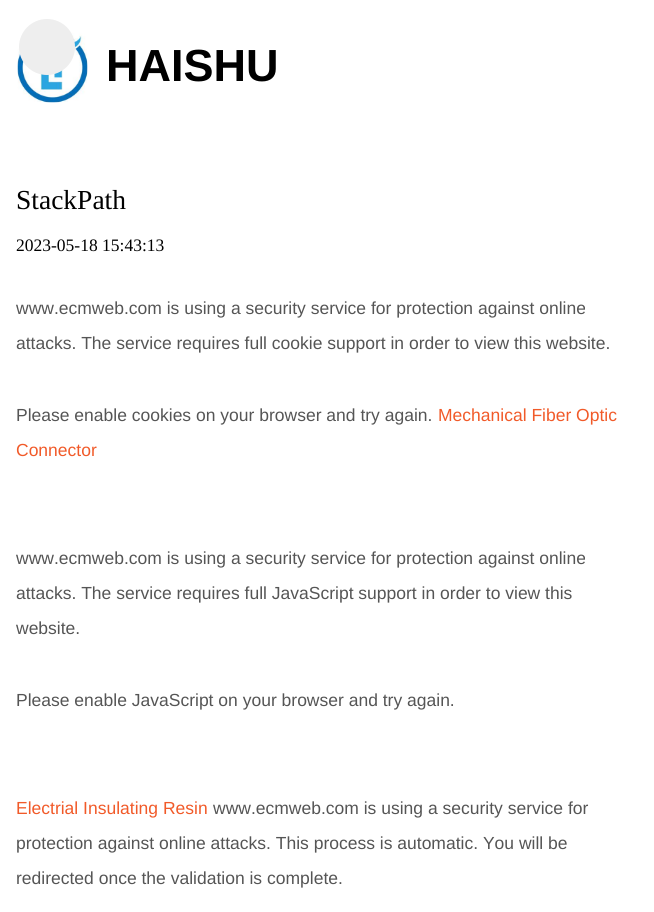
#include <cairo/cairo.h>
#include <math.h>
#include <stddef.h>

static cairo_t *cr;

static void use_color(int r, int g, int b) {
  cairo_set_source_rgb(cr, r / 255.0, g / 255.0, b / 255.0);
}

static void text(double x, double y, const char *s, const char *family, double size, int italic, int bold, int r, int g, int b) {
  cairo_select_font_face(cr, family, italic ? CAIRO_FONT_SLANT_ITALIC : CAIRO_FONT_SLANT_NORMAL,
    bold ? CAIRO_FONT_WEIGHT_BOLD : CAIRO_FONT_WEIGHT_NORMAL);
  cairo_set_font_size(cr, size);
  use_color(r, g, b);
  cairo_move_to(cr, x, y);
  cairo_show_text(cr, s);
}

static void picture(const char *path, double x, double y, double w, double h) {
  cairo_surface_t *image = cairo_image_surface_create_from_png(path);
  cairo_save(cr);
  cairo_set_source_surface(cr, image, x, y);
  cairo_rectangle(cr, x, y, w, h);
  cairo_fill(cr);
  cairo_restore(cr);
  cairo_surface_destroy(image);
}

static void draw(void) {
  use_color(255, 255, 255);
  cairo_paint(cr);
  picture("img_01.png", 17, 32, 71, 71);
  use_color(238, 238, 238);
  cairo_arc(cr, 47, 47, 28, 0, 2 * M_PI);
  cairo_fill(cr);
  text(106, 81, "HAISHU", "Liberation Sans", 45, 0, 1, 0, 0, 0);
  text(16, 209, "StackPath", "Liberation Serif", 27.5, 0, 0, 0, 0, 0);
  text(16, 251, "2023-05-18 15:43:13", "Liberation Serif", 17.5, 0, 0, 0, 0, 0);
  text(16, 314, "www.ecmweb.com is using a security service for protection against online", "Liberation Sans", 17.5, 0, 0, 85, 85, 85);
  text(16, 349, "attacks. The service requires full cookie support in order to view this website.", "Liberation Sans", 17.5, 0, 0, 85, 85, 85);
  text(16, 421, "Please enable cookies on your browser and try again.", "Liberation Sans", 17.5, 0, 0, 85, 85, 85);
  text(438, 421, "Mechanical Fiber Optic", "Liberation Sans", 17.5, 0, 0, 241, 90, 41);
  text(16, 456, "Connector", "Liberation Sans", 17.5, 0, 0, 241, 90, 41);
  text(16, 564, "www.ecmweb.com is using a security service for protection against online", "Liberation Sans", 17.5, 0, 0, 85, 85, 85);
  text(16, 599, "attacks. The service requires full JavaScript support in order to view this", "Liberation Sans", 17.5, 0, 0, 85, 85, 85);
  text(16, 634, "website.", "Liberation Sans", 17.5, 0, 0, 85, 85, 85);
  text(16, 706, "Please enable JavaScript on your browser and try again.", "Liberation Sans", 17.5, 0, 0, 85, 85, 85);
  text(16, 814, "Electrial Insulating Resin", "Liberation Sans", 17.5, 0, 0, 241, 90, 41);
  text(213, 814, "www.ecmweb.com is using a security service for", "Liberation Sans", 17.5, 0, 0, 85, 85, 85);
  text(16, 849, "protection against online attacks. This process is automatic. You will be", "Liberation Sans", 17.5, 0, 0, 85, 85, 85);
  text(16, 884, "redirected once the validation is complete.", "Liberation Sans", 17.5, 0, 0, 85, 85, 85);
}

int main(void) {
  cairo_surface_t *surface = cairo_image_surface_create(CAIRO_FORMAT_RGB24, 654, 912);
  cr = cairo_create(surface);
  cairo_font_options_t *options = cairo_font_options_create();
  cairo_font_options_set_hint_metrics(options, CAIRO_HINT_METRICS_OFF);
  cairo_font_options_set_hint_style(options, CAIRO_HINT_STYLE_NONE);
  cairo_set_font_options(cr, options);
  cairo_set_miter_limit(cr, 4);
  draw();
  cairo_surface_write_to_png(surface, "out.png");
  cairo_font_options_destroy(options);
  cairo_destroy(cr);
  cairo_surface_destroy(surface);
  return 0;
}
